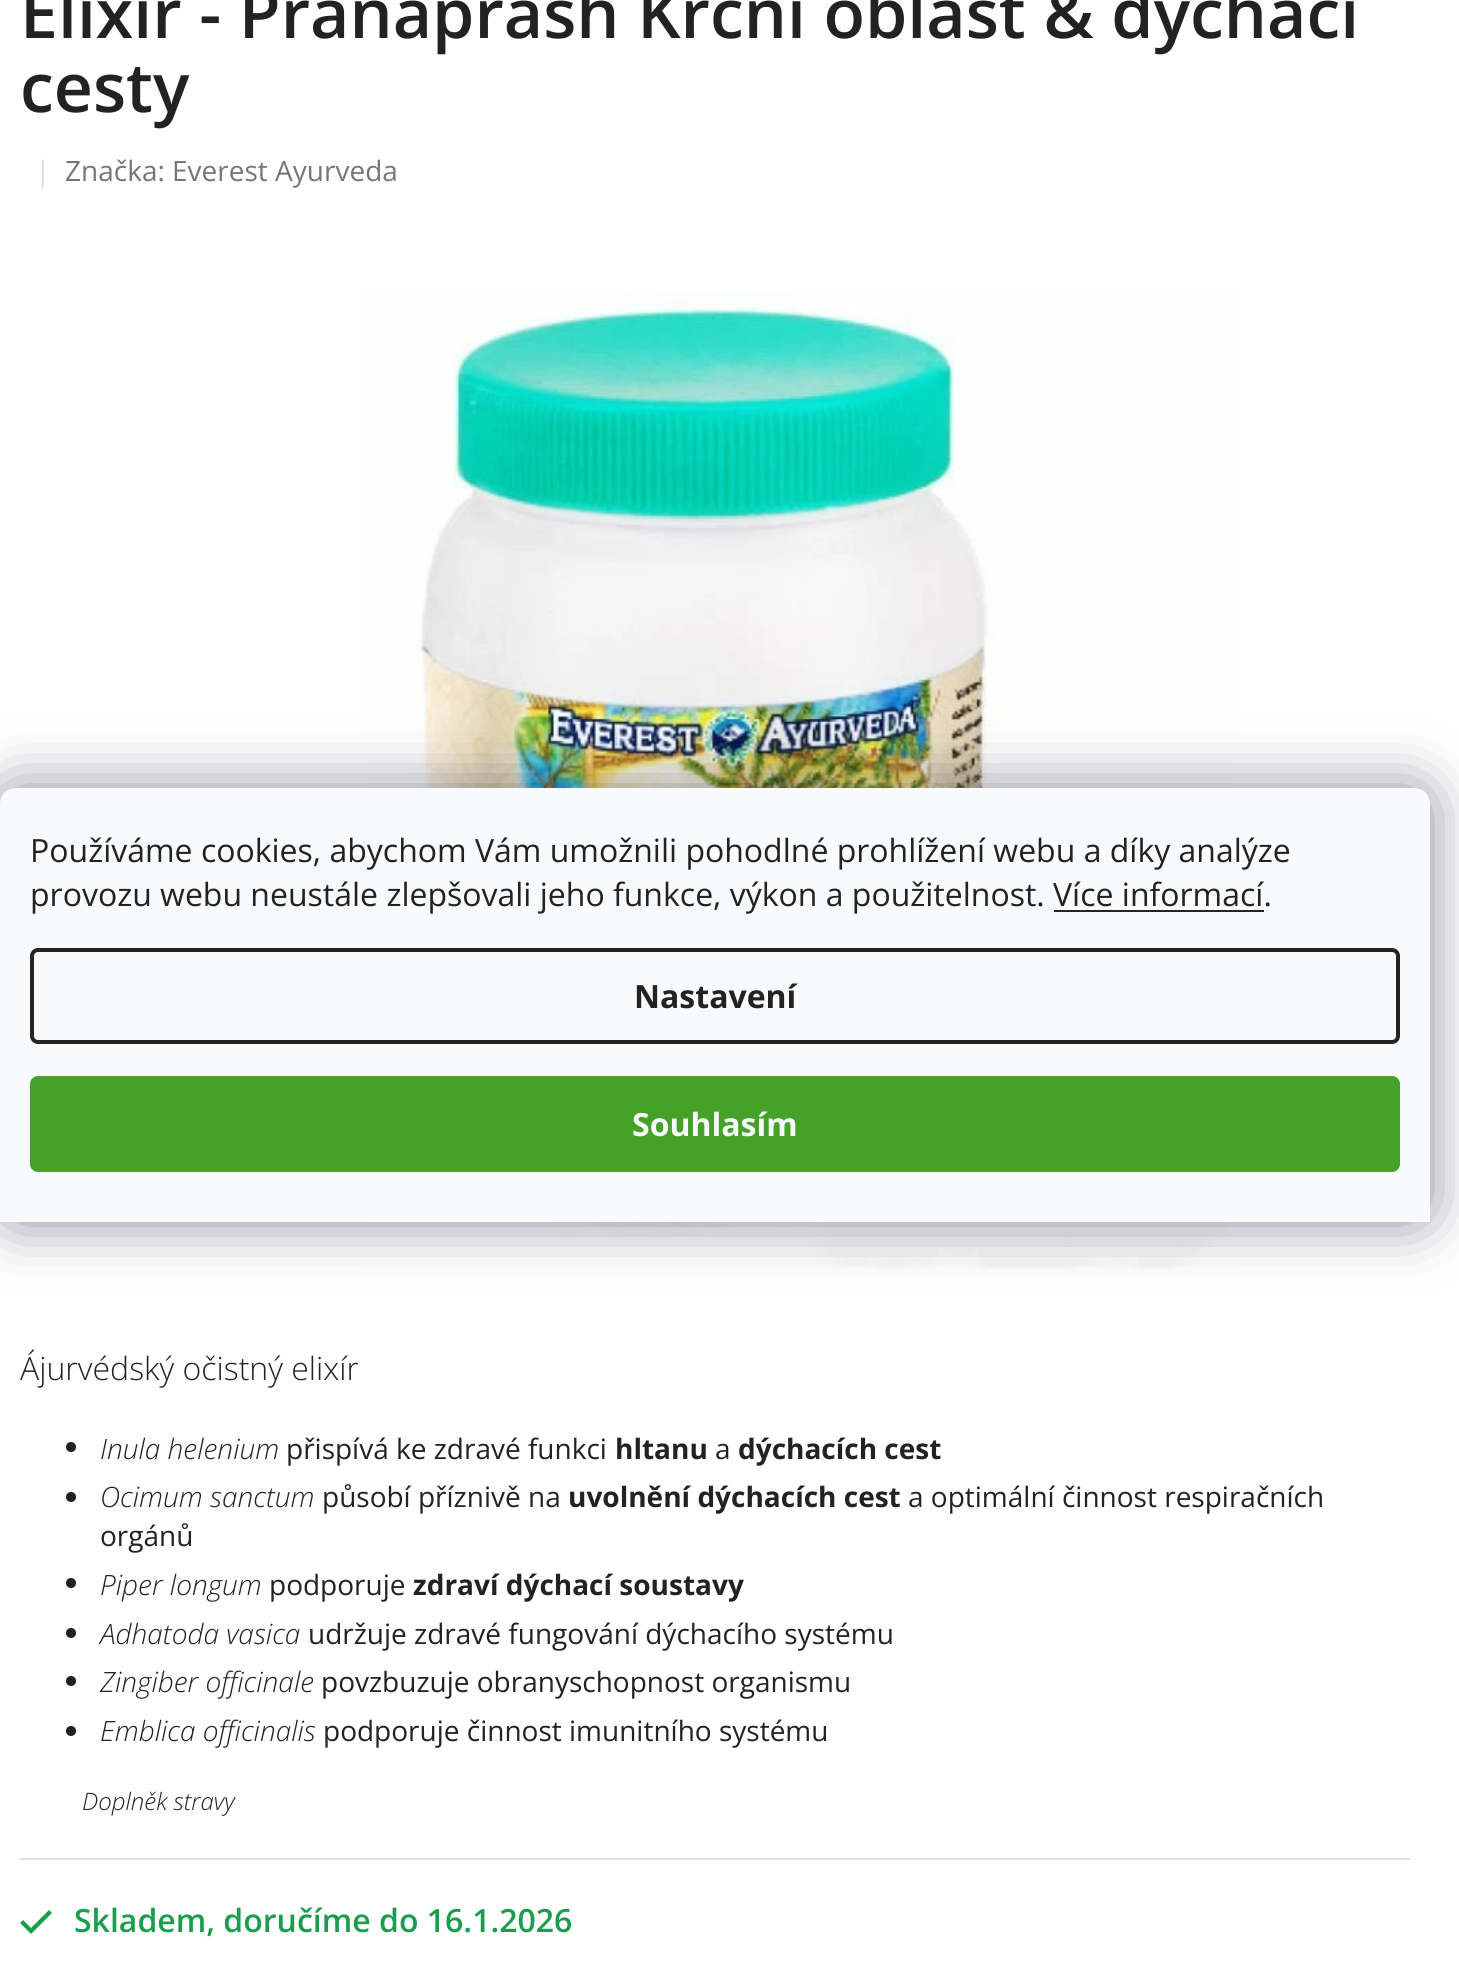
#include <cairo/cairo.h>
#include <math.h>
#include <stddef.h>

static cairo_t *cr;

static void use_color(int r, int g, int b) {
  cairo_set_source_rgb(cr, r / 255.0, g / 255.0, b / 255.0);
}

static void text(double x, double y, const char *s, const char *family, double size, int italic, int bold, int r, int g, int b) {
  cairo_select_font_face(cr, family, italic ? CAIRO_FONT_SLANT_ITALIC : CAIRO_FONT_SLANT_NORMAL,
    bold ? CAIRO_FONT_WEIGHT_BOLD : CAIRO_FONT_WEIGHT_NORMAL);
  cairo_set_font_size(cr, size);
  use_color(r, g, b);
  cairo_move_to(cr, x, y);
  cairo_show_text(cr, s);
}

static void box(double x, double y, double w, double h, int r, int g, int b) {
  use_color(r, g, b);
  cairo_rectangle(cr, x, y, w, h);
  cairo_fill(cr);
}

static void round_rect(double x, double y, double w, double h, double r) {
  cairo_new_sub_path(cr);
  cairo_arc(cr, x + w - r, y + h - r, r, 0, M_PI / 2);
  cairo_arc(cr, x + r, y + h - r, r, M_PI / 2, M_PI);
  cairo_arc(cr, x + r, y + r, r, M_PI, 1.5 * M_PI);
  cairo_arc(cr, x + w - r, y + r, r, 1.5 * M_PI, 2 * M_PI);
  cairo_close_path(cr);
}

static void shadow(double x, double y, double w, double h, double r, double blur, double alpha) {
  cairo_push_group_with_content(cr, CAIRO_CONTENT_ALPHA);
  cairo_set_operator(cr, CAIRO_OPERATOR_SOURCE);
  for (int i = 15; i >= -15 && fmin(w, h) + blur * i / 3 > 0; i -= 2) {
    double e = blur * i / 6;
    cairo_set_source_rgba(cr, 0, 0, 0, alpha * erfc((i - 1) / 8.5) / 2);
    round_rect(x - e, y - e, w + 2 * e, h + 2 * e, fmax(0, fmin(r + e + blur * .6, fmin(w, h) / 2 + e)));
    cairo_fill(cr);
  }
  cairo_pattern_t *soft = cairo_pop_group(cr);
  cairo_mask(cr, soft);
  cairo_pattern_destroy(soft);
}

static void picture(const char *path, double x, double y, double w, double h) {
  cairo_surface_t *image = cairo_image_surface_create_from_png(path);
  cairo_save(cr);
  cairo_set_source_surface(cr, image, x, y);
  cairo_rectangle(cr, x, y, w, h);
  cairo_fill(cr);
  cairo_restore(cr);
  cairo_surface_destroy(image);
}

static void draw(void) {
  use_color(255, 255, 255);
  cairo_paint(cr);
  picture("img_01.png", 363, 293, 879, 977);
  use_color(34, 34, 34);
  cairo_arc(cr, 71, 1447, 5, 0, 2 * M_PI);
  cairo_fill(cr);
  cairo_arc(cr, 71, 1497, 5, 0, 2 * M_PI);
  cairo_fill(cr);
  cairo_arc(cr, 71, 1583, 5, 0, 2 * M_PI);
  cairo_fill(cr);
  cairo_arc(cr, 71, 1633, 5, 0, 2 * M_PI);
  cairo_fill(cr);
  cairo_arc(cr, 71, 1681, 5, 0, 2 * M_PI);
  cairo_fill(cr);
  cairo_arc(cr, 71, 1731, 5, 0, 2 * M_PI);
  cairo_fill(cr);
  box(20, 1858, 1390, 2, 225, 225, 225);
  use_color(26, 157, 77);
  cairo_new_path(cr);
  cairo_move_to(cr, 20, 1923);
  cairo_line_to(cr, 31, 1934);
  cairo_line_to(cr, 52, 1913);
  cairo_line_to(cr, 49, 1910);
  cairo_line_to(cr, 31, 1928);
  cairo_line_to(cr, 23, 1920);
  cairo_close_path(cr);
  cairo_fill(cr);
  use_color(27, 25, 57);
  shadow(0, 788, 1430, 434, 16, 30, 0.5);
  use_color(248, 250, 251);
  cairo_new_path(cr);
  cairo_move_to(cr, 16, 788);
  cairo_line_to(cr, 1414, 788);
  cairo_curve_to(cr, 1423, 788, 1430, 795, 1430, 804);
  cairo_line_to(cr, 1430, 1222);
  cairo_line_to(cr, 0, 1222);
  cairo_line_to(cr, 0, 804);
  cairo_curve_to(cr, 0, 795, 7, 788, 16, 788);
  cairo_close_path(cr);
  cairo_fill(cr);
  round_rect(32, 950, 1366, 92, 6);
  use_color(37, 37, 37);
  cairo_set_line_width(cr, 4);
  cairo_stroke(cr);
  use_color(70, 161, 40);
  round_rect(30, 1076, 1370, 96, 8);
  cairo_fill(cr);
  text(20, 38, "Elixír - Pranaprash Krční oblast & dýchací", "Open Sans SemiBold", 68, 0, 0, 34, 34, 34);
  text(20, 112, "cesty", "Open Sans SemiBold", 68, 0, 0, 34, 34, 34);
  text(35, 181, "|", "Open Sans", 28, 0, 0, 218, 218, 218);
  text(65, 181, "Značka: Everest Ayurveda", "Open Sans", 28, 0, 0, 118, 118, 118);
  text(20, 1380, "Ájurvédský očistný elixír", "Open Sans Light", 32, 0, 0, 34, 34, 34);
  text(100, 1459, "Inula helenium", "Open Sans Light", 28, 1, 0, 34, 34, 34);
  text(286, 1459, "přispívá ke zdravé funkci", "Open Sans", 28, 0, 0, 34, 34, 34);
  text(615, 1459, "hltanu", "Open Sans", 28, 0, 1, 34, 34, 34);
  text(715, 1459, "a", "Open Sans", 28, 0, 0, 34, 34, 34);
  text(738, 1459, "dýchacích cest", "Open Sans", 28, 0, 1, 34, 34, 34);
  text(100, 1507, "Ocimum sanctum", "Open Sans Light", 28, 1, 0, 34, 34, 34);
  text(322, 1507, "působí příznivě na", "Open Sans", 28, 0, 0, 34, 34, 34);
  text(568, 1507, "uvolnění dýchacích cest", "Open Sans", 28, 0, 1, 34, 34, 34);
  text(908, 1507, "a optimální činnost respiračních", "Open Sans", 28, 0, 0, 34, 34, 34);
  text(100, 1546, "orgánů", "Open Sans", 28, 0, 0, 34, 34, 34);
  text(100, 1595, "Piper longum", "Open Sans Light", 28, 1, 0, 34, 34, 34);
  text(269, 1595, "podporuje", "Open Sans", 28, 0, 0, 34, 34, 34);
  text(413, 1595, "zdraví dýchací soustavy", "Open Sans", 28, 0, 1, 34, 34, 34);
  text(100, 1644, "Adhatoda vasica", "Open Sans Light", 28, 1, 0, 34, 34, 34);
  text(308, 1644, "udržuje zdravé fungování dýchacího systému", "Open Sans", 28, 0, 0, 34, 34, 34);
  text(100, 1692, "Zingiber officinale", "Open Sans Light", 28, 1, 0, 34, 34, 34);
  text(321, 1692, "povzbuzuje obranyschopnost organismu", "Open Sans", 28, 0, 0, 34, 34, 34);
  text(100, 1741, "Emblica officinalis", "Open Sans Light", 28, 1, 0, 34, 34, 34);
  text(323, 1741, "podporuje činnost imunitního systému", "Open Sans", 28, 0, 0, 34, 34, 34);
  text(82, 1810, "Doplněk stravy", "Open Sans Light", 24, 1, 0, 34, 34, 34);
  text(74, 1932, "Skladem, doručíme do 16.1.2026", "Open Sans SemiBold", 32, 0, 0, 26, 157, 77);
  text(30, 862, "Používáme cookies, abychom Vám umožnili pohodlné prohlížení webu a díky analýze", "Open Sans", 32, 0, 0, 34, 34, 34);
  text(30, 906, "provozu webu neustále zlepšovali jeho funkce, výkon a použitelnost. Více informací.", "Open Sans", 32, 0, 0, 34, 34, 34);
  box(1054, 910, 210, 2, 37, 37, 37);
  text(634, 1008, "Nastavení", "Open Sans", 32, 0, 1, 34, 34, 34);
  text(632, 1136, "Souhlasím", "Open Sans", 32, 0, 1, 248, 250, 251);
}

int main(void) {
  cairo_surface_t *surface = cairo_image_surface_create(CAIRO_FORMAT_RGB24, 1459, 1970);
  cr = cairo_create(surface);
  cairo_font_options_t *options = cairo_font_options_create();
  cairo_font_options_set_hint_metrics(options, CAIRO_HINT_METRICS_OFF);
  cairo_font_options_set_hint_style(options, CAIRO_HINT_STYLE_NONE);
  cairo_set_font_options(cr, options);
  cairo_set_miter_limit(cr, 4);
  draw();
  cairo_surface_write_to_png(surface, "out.png");
  cairo_font_options_destroy(options);
  cairo_destroy(cr);
  cairo_surface_destroy(surface);
  return 0;
}
